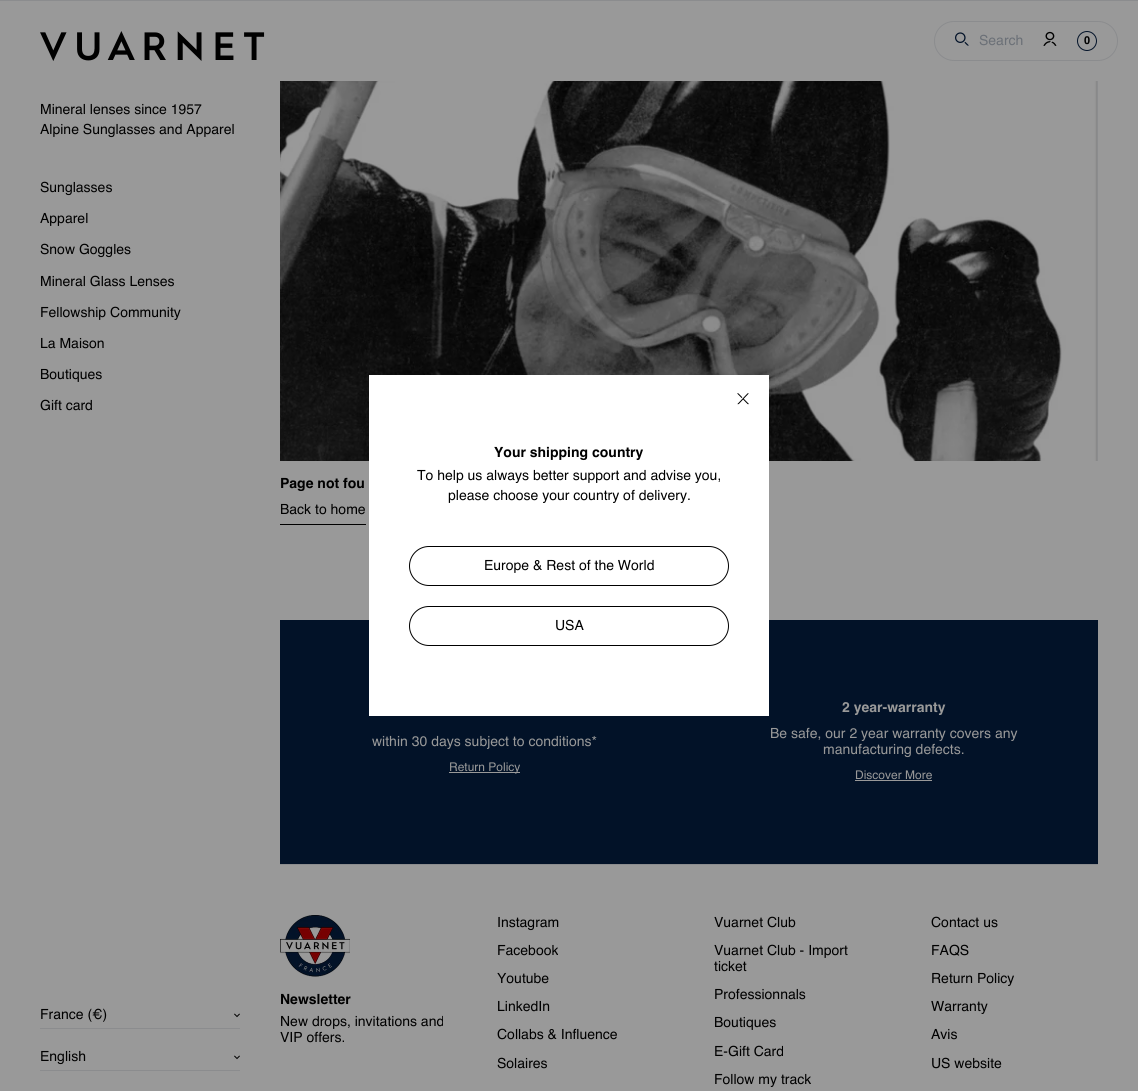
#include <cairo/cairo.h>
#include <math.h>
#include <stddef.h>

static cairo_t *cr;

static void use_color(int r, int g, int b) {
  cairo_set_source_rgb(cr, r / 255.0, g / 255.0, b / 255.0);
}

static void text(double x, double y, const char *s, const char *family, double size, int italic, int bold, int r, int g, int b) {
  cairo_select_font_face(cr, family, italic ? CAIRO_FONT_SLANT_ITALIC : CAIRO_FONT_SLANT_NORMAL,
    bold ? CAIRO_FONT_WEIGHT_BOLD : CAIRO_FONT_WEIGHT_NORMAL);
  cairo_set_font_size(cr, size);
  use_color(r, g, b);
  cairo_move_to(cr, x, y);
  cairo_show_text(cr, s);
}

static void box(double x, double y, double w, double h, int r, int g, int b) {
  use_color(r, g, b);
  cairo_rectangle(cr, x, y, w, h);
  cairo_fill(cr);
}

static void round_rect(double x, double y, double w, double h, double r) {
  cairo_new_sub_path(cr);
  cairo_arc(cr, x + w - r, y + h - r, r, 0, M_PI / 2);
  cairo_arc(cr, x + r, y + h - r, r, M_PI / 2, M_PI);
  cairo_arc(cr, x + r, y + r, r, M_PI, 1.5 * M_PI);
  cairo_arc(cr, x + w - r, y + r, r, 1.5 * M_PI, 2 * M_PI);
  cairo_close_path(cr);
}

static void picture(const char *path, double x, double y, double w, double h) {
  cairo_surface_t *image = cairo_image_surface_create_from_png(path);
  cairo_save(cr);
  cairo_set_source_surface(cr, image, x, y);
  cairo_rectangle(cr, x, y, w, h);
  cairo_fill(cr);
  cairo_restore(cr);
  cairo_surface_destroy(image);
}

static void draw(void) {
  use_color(153, 153, 153);
  cairo_paint(cr);
  box(0, 0, 1138, 1, 139, 140, 142);
  picture("img_01.png", 40, 31, 225, 30);
  box(40, 1028, 200, 1, 139, 140, 142);
  picture("img_02.png", 234, 1013, 6, 5);
  box(40, 1070, 200, 1, 139, 140, 142);
  picture("img_02.png", 234, 1055, 6, 5);
  round_rect(934.5, 21.5, 183, 39, 19.5);
  cairo_set_line_width(cr, 1);
  cairo_stroke(cr);
  picture("img_03.png", 955, 32, 14, 14);
  picture("img_04.png", 1043, 31, 14, 15);
  cairo_arc(cr, 1087, 41, 9.5, 0, 2 * M_PI);
  use_color(2, 18, 40);
  cairo_stroke(cr);
  box(1097, 81, 1, 380, 139, 140, 142);
  picture("img_05.png", 280, 81, 817, 380);
  box(280, 524, 86, 1, 0, 0, 0);
  box(280, 620, 818, 244, 2, 18, 40);
  box(449, 772, 71, 1, 153, 153, 153);
  box(855, 780, 77, 1, 153, 153, 153);
  box(280, 864, 818, 1, 139, 140, 142);
  picture("img_06.png", 280, 915, 70, 62);
  box(369, 375, 400, 341, 255, 255, 255);
  picture("img_07.png", 737, 393, 12, 12);
  round_rect(409.5, 546.5, 319, 39, 19.5);
  use_color(0, 0, 0);
  cairo_stroke(cr);
  round_rect(409.5, 606.5, 319, 39, 19.5);
  cairo_stroke(cr);
  text(40, 114, "Mineral lenses since 1957", "Helvetica", 14, 0, 0, 0, 0, 0);
  text(40, 134, "Alpine Sunglasses and Apparel", "Helvetica", 14, 0, 0, 0, 0, 0);
  text(40, 192, "Sunglasses", "Helvetica", 14, 0, 0, 0, 0, 0);
  text(40, 223, "Apparel", "Helvetica", 14, 0, 0, 0, 0, 0);
  text(40, 254, "Snow Goggles", "Helvetica", 14, 0, 0, 0, 0, 0);
  text(40, 286, "Mineral Glass Lenses", "Helvetica", 14, 0, 0, 0, 0, 0);
  text(40, 317, "Fellowship Community", "Helvetica", 14, 0, 0, 0, 0, 0);
  text(40, 348, "La Maison", "Helvetica", 14, 0, 0, 0, 0, 0);
  text(40, 379, "Boutiques", "Helvetica", 14, 0, 0, 0, 0, 0);
  text(40, 410, "Gift card", "Helvetica", 14, 0, 0, 0, 0, 0);
  text(40, 1019, "France (€)", "Helvetica", 14, 0, 0, 0, 0, 0);
  text(40, 1061, "English", "Helvetica", 14, 0, 0, 0, 0, 0);
  text(979, 45, "Search", "Helvetica", 14, 0, 0, 107, 112, 119);
  text(1084, 44, "0", "Helvetica", 11, 0, 1, 0, 0, 0);
  text(280, 488, "Page not fou", "Helvetica", 14, 0, 1, 0, 0, 0);
  text(280, 514, "Back to home", "Helvetica", 14, 0, 0, 0, 0, 0);
  text(372, 746, "within 30 days subject to conditions*", "Helvetica", 14, 0, 0, 153, 153, 153);
  text(449, 771, "Return Policy", "Helvetica", 12, 0, 0, 153, 153, 153);
  text(842, 712, "2 year-warranty", "Helvetica", 14, 0, 1, 153, 153, 153);
  text(770, 738, "Be safe, our 2 year warranty covers any", "Helvetica", 14, 0, 0, 153, 153, 153);
  text(823, 754, "manufacturing defects.", "Helvetica", 14, 0, 0, 153, 153, 153);
  text(855, 779, "Discover More", "Helvetica", 12, 0, 0, 153, 153, 153);
  text(280, 1004, "Newsletter", "Helvetica", 14, 0, 1, 0, 0, 0);
  text(280, 1026, "New drops, invitations and", "Helvetica", 14, 0, 0, 0, 0, 0);
  text(280, 1042, "VIP offers.", "Helvetica", 14, 0, 0, 0, 0, 0);
  text(497, 927, "Instagram", "Helvetica", 14, 0, 0, 0, 0, 0);
  text(497, 955, "Facebook", "Helvetica", 14, 0, 0, 0, 0, 0);
  text(497, 983, "Youtube", "Helvetica", 14, 0, 0, 0, 0, 0);
  text(497, 1011, "LinkedIn", "Helvetica", 14, 0, 0, 0, 0, 0);
  text(497, 1039, "Collabs & Influence", "Helvetica", 14, 0, 0, 0, 0, 0);
  text(497, 1068, "Solaires", "Helvetica", 14, 0, 0, 0, 0, 0);
  text(714, 927, "Vuarnet Club", "Helvetica", 14, 0, 0, 0, 0, 0);
  text(714, 955, "Vuarnet Club - Import", "Helvetica", 14, 0, 0, 0, 0, 0);
  text(714, 971, "ticket", "Helvetica", 14, 0, 0, 0, 0, 0);
  text(714, 999, "Professionnals", "Helvetica", 14, 0, 0, 0, 0, 0);
  text(714, 1027, "Boutiques", "Helvetica", 14, 0, 0, 0, 0, 0);
  text(714, 1056, "E-Gift Card", "Helvetica", 14, 0, 0, 0, 0, 0);
  text(714, 1084, "Follow my track", "Helvetica", 14, 0, 0, 0, 0, 0);
  text(931, 927, "Contact us", "Helvetica", 14, 0, 0, 0, 0, 0);
  text(931, 955, "FAQS", "Helvetica", 14, 0, 0, 0, 0, 0);
  text(931, 983, "Return Policy", "Helvetica", 14, 0, 0, 0, 0, 0);
  text(931, 1011, "Warranty", "Helvetica", 14, 0, 0, 0, 0, 0);
  text(931, 1039, "Avis", "Helvetica", 14, 0, 0, 0, 0, 0);
  text(931, 1068, "US website", "Helvetica", 14, 0, 0, 0, 0, 0);
  text(494, 457, "Your shipping country", "Helvetica", 14, 0, 1, 0, 0, 0);
  text(417, 480, "To help us always better support and advise you,", "Helvetica", 14, 0, 0, 0, 0, 0);
  text(448, 500, "please choose your country of delivery.", "Helvetica", 14, 0, 0, 0, 0, 0);
  text(484, 570, "Europe & Rest of the World", "Helvetica", 14, 0, 0, 0, 0, 0);
  text(555, 630, "USA", "Helvetica", 14, 0, 0, 0, 0, 0);
}

int main(void) {
  cairo_surface_t *surface = cairo_image_surface_create(CAIRO_FORMAT_RGB24, 1138, 1091);
  cr = cairo_create(surface);
  cairo_font_options_t *options = cairo_font_options_create();
  cairo_font_options_set_hint_metrics(options, CAIRO_HINT_METRICS_OFF);
  cairo_font_options_set_hint_style(options, CAIRO_HINT_STYLE_NONE);
  cairo_set_font_options(cr, options);
  cairo_set_miter_limit(cr, 4);
  draw();
  cairo_surface_write_to_png(surface, "out.png");
  cairo_font_options_destroy(options);
  cairo_destroy(cr);
  cairo_surface_destroy(surface);
  return 0;
}
